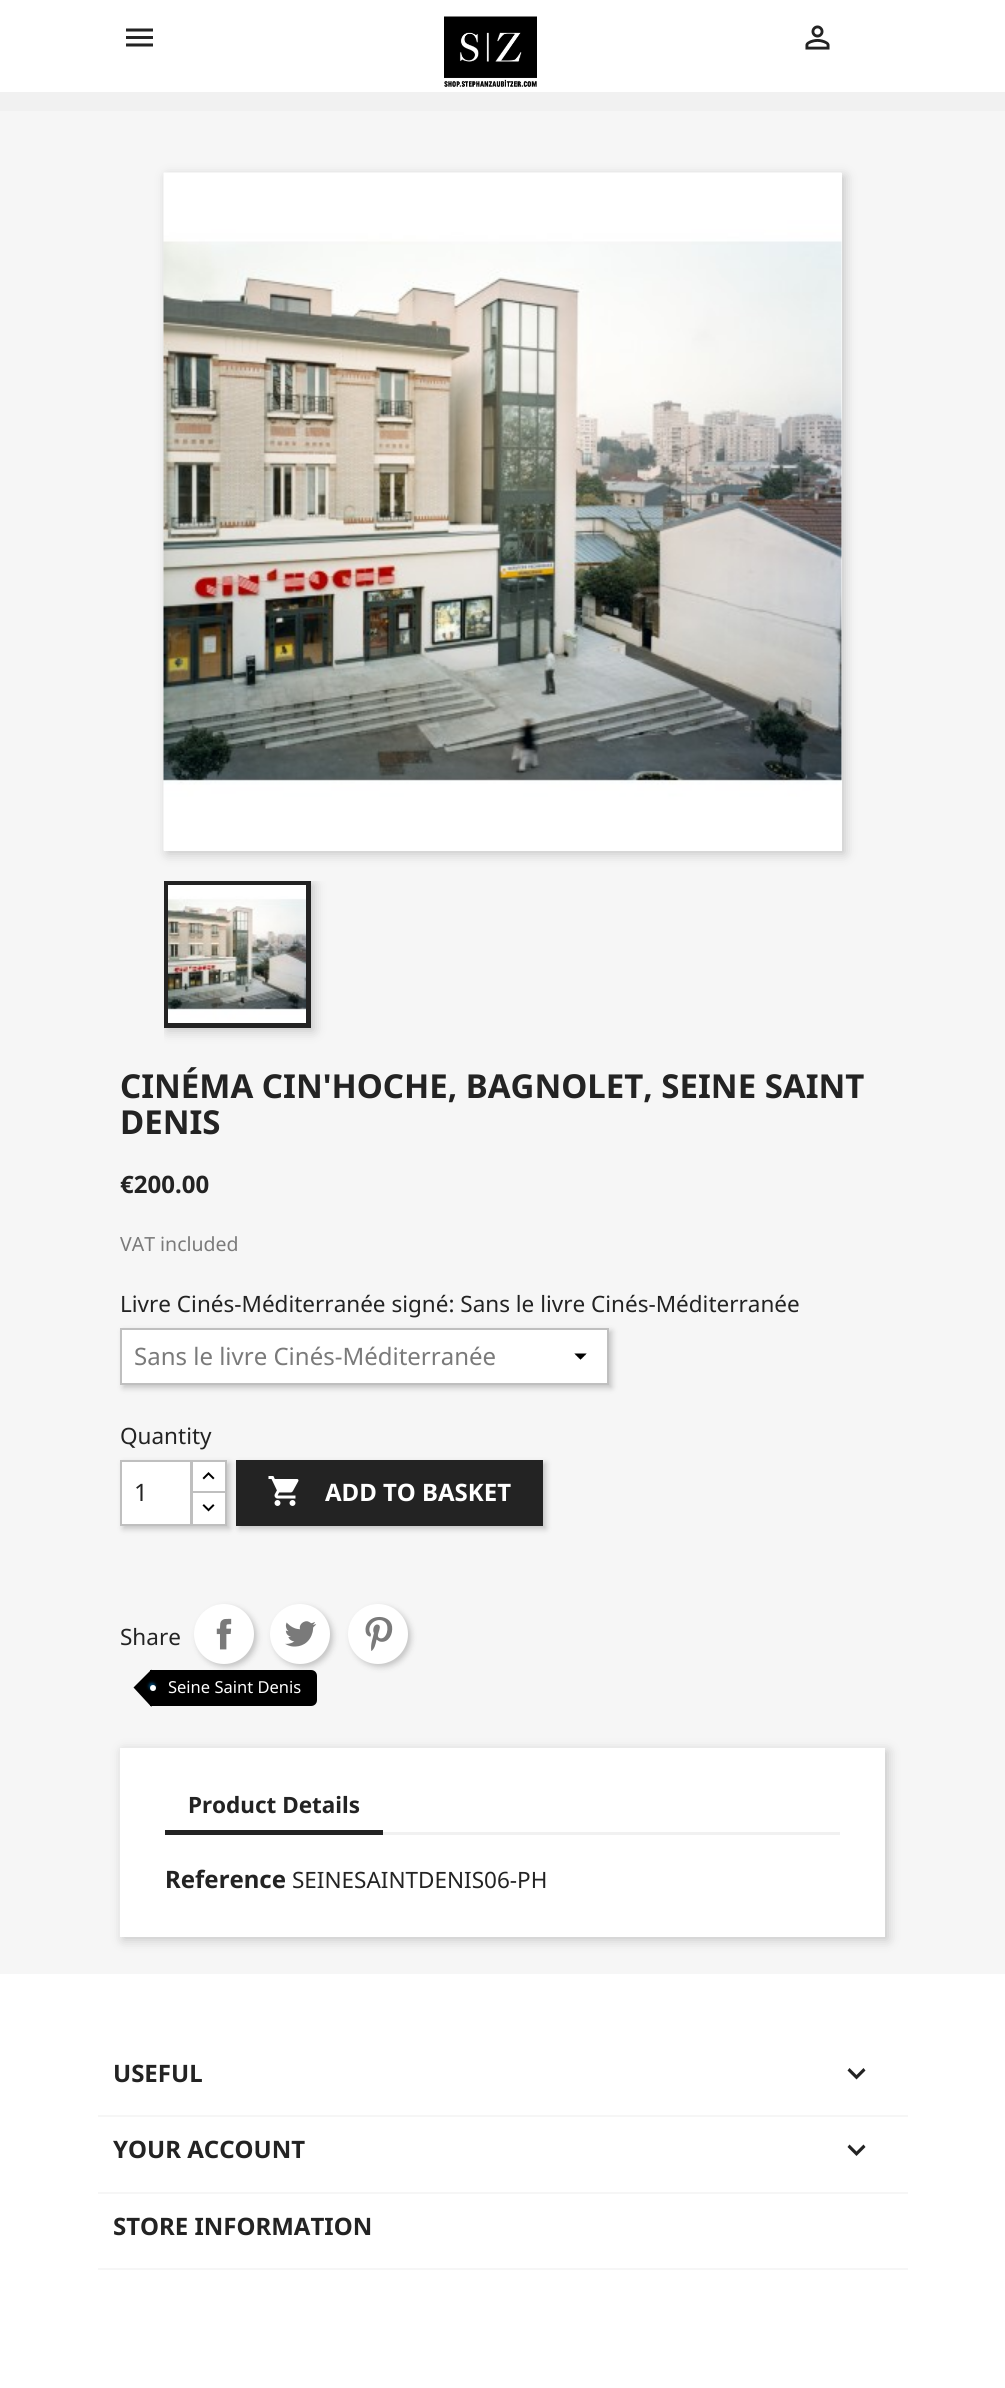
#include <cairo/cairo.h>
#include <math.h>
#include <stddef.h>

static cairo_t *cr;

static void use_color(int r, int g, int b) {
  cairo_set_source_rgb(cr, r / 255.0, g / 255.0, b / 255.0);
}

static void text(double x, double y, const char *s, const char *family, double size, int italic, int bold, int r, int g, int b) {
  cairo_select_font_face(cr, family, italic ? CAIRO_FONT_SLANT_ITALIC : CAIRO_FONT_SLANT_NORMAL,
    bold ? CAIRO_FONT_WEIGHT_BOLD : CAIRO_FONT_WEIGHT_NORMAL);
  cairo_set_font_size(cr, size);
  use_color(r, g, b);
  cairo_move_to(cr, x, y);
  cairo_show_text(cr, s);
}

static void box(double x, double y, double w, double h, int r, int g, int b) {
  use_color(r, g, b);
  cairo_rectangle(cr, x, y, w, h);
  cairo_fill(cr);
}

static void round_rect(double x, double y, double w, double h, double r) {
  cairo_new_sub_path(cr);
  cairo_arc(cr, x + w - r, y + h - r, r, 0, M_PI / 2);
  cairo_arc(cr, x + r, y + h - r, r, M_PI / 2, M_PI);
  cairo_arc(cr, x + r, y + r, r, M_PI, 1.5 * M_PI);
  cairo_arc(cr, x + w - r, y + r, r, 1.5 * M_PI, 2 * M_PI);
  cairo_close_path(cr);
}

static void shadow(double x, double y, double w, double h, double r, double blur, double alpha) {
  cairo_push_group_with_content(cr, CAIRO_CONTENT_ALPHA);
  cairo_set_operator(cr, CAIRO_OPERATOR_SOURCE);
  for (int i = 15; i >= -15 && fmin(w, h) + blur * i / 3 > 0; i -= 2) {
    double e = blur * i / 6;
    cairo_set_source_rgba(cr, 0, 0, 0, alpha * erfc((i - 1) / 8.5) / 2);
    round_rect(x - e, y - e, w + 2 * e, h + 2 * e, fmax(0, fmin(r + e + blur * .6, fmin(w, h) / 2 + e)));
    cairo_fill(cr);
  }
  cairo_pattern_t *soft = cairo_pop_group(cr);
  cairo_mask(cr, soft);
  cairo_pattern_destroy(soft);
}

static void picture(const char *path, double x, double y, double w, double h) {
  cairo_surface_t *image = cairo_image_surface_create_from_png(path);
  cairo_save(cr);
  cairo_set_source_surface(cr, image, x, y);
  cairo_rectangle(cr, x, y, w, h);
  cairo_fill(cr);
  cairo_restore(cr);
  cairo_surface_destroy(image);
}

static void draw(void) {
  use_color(255, 255, 255);
  cairo_paint(cr);
  box(0, 92, 1005, 19, 241, 241, 241);
  picture("img_01.png", 126, 28, 27, 19);
  picture("img_02.png", 444, 16, 93, 71);
  picture("img_03.png", 805, 25, 25, 25);
  box(0, 111, 1005, 1863, 246, 246, 246);
  use_color(0, 0, 0);
  shadow(167, 176, 678, 678, 0, 6, 0.2);
  box(164, 173, 678, 678, 255, 255, 255);
  picture("img_04.png", 163, 172, 679, 679);
  cairo_save(cr);
  cairo_rectangle(cr, 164, 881, 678, 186);
  cairo_clip(cr);
  use_color(0, 0, 0);
  shadow(167, 884, 147, 147, 0, 6, 0.2);
  cairo_restore(cr);
  cairo_rectangle(cr, 166.5, 883.5, 142, 142);
  use_color(35, 35, 35);
  cairo_set_line_width(cr, 5);
  cairo_stroke(cr);
  picture("img_05.png", 168, 885, 138, 138);
  use_color(0, 0, 0);
  shadow(123, 1331, 489, 57, 0, 3, 0.2);
  box(122, 1330, 485, 53, 255, 255, 255);
  picture("img_06.png", 574, 1353, 13, 7);
  cairo_rectangle(cr, 121, 1329, 487, 55);
  use_color(191, 191, 191);
  cairo_set_line_width(cr, 2);
  cairo_stroke(cr);
  use_color(0, 0, 0);
  shadow(239, 1463, 307, 66, 0, 3, 0.2);
  box(236, 1460, 307, 66, 35, 35, 35);
  use_color(0, 0, 0);
  shadow(123, 1463, 107, 66, 0, 3, 0.2);
  box(193, 1462, 32, 29, 255, 255, 255);
  cairo_rectangle(cr, 192, 1461, 34, 32);
  use_color(191, 191, 191);
  cairo_stroke(cr);
  use_color(255, 255, 255);
  cairo_rectangle(cr, 192, 1492, 34, 33);
  cairo_fill_preserve(cr);
  use_color(191, 191, 191);
  cairo_stroke(cr);
  use_color(255, 255, 255);
  cairo_rectangle(cr, 121, 1461, 70, 64);
  cairo_fill_preserve(cr);
  use_color(191, 191, 191);
  cairo_stroke(cr);
  picture("img_07.png", 202, 1472, 13, 8);
  picture("img_08.png", 202, 1504, 13, 8);
  picture("img_09.png", 268, 1476, 31, 30);
  use_color(0, 0, 0);
  shadow(197, 1607, 60, 60, 30, 3, 0.2);
  use_color(255, 255, 255);
  cairo_arc(cr, 224, 1634, 30, 0, 2 * M_PI);
  cairo_fill(cr);
  picture("img_10.png", 216, 1618, 16, 32);
  use_color(0, 0, 0);
  shadow(273, 1607, 60, 60, 30, 3, 0.2);
  use_color(255, 255, 255);
  cairo_arc(cr, 300, 1634, 30, 0, 2 * M_PI);
  cairo_fill(cr);
  picture("img_11.png", 285, 1621, 32, 26);
  use_color(0, 0, 0);
  shadow(351, 1607, 60, 60, 30, 3, 0.2);
  use_color(255, 255, 255);
  cairo_arc(cr, 378, 1634, 30, 0, 2 * M_PI);
  cairo_fill(cr);
  picture("img_12.png", 365, 1616, 28, 35);
  use_color(0, 0, 0);
  cairo_new_path(cr);
  cairo_move_to(cr, 150, 1670);
  cairo_line_to(cr, 311, 1670);
  cairo_curve_to(cr, 314.5, 1670, 317, 1672.5, 317, 1676);
  cairo_line_to(cr, 317, 1700);
  cairo_curve_to(cr, 317, 1703.5, 314.5, 1706, 311, 1706);
  cairo_line_to(cr, 150, 1706);
  cairo_close_path(cr);
  cairo_fill(cr);
  cairo_new_path(cr);
  cairo_move_to(cr, 151.5, 1669.5);
  cairo_line_to(cr, 151.5, 1707);
  cairo_line_to(cr, 133.5, 1687.5);
  cairo_close_path(cr);
  cairo_fill(cr);
  use_color(0, 73, 119);
  shadow(149, 1683, 6, 6, 3, 1.5, 1);
  use_color(255, 255, 255);
  cairo_arc(cr, 153, 1688, 3, 0, 2 * M_PI);
  cairo_fill(cr);
  use_color(0, 0, 0);
  shadow(123, 1751, 765, 189, 0, 6, 0.2);
  box(120, 1748, 765, 189, 255, 255, 255);
  box(383, 1832, 457, 3, 241, 241, 241);
  box(165, 1830, 218, 5, 35, 35, 35);
  box(98, 2115, 810, 2, 246, 246, 246);
  use_color(35, 35, 35);
  cairo_new_path(cr);
  cairo_move_to(cr, 849.5, 2068);
  cairo_line_to(cr, 856.5, 2075);
  cairo_line_to(cr, 863.5, 2068);
  cairo_line_to(cr, 865.5, 2070.5);
  cairo_line_to(cr, 856.5, 2079.5);
  cairo_line_to(cr, 847.5, 2070.5);
  cairo_close_path(cr);
  cairo_fill(cr);
  box(98, 2192, 810, 2, 246, 246, 246);
  use_color(35, 35, 35);
  cairo_new_path(cr);
  cairo_move_to(cr, 849.5, 2144.5);
  cairo_line_to(cr, 856.5, 2151.5);
  cairo_line_to(cr, 863.5, 2144.5);
  cairo_line_to(cr, 865.5, 2147);
  cairo_line_to(cr, 856.5, 2156);
  cairo_line_to(cr, 847.5, 2147);
  cairo_close_path(cr);
  cairo_fill(cr);
  box(98, 2268, 810, 2, 246, 246, 246);
  text(120, 1098, "CINÉMA CIN'HOCHE, BAGNOLET, SEINE SAINT", "Noto Sans", 33, 0, 1, 35, 35, 35);
  text(120, 1134, "DENIS", "Noto Sans", 33, 0, 1, 35, 35, 35);
  text(120, 1193, "€200.00", "Noto Sans", 24, 0, 1, 35, 35, 35);
  text(120, 1251, "VAT included", "Noto Sans", 19.5, 0, 0, 122, 122, 122);
  text(120, 1312, "Livre Cinés-Méditerranée signé: Sans le livre Cinés-Méditerranée", "Noto Sans", 22.5, 0, 0, 35, 35, 35);
  text(134, 1365, "Sans le livre Cinés-Méditerranée", "Noto Sans", 24, 0, 0, 122, 122, 122);
  text(120, 1444, "Quantity", "Noto Sans", 22.5, 0, 0, 35, 35, 35);
  text(134, 1501, "1", "Noto Sans", 24, 0, 0, 35, 35, 35);
  text(325, 1501, "ADD TO BASKET", "Noto Sans", 24, 0, 1, 255, 255, 255);
  text(120, 1645, "Share", "Noto Sans", 22.5, 0, 0, 35, 35, 35);
  text(168, 1693, "Seine Saint Denis", "Noto Sans", 16.5, 0, 0, 255, 255, 255);
  text(188, 1813, "Product Details", "Noto Sans", 22.5, 0, 1, 35, 35, 35);
  text(165, 1888, "Reference", "Noto Sans", 24, 0, 1, 35, 35, 35);
  text(292, 1888, "SEINESAINTDENIS06-PH", "Noto Sans", 22.5, 0, 0, 35, 35, 35);
  text(113, 2082, "USEFUL", "Noto Sans", 24, 0, 1, 35, 35, 35);
  text(113, 2158, "YOUR ACCOUNT", "Noto Sans", 24, 0, 1, 35, 35, 35);
  text(113, 2235, "STORE INFORMATION", "Noto Sans", 24, 0, 1, 35, 35, 35);
}

int main(void) {
  cairo_surface_t *surface = cairo_image_surface_create(CAIRO_FORMAT_RGB24, 1005, 2388);
  cr = cairo_create(surface);
  cairo_font_options_t *options = cairo_font_options_create();
  cairo_font_options_set_hint_metrics(options, CAIRO_HINT_METRICS_OFF);
  cairo_font_options_set_hint_style(options, CAIRO_HINT_STYLE_NONE);
  cairo_set_font_options(cr, options);
  cairo_set_miter_limit(cr, 4);
  draw();
  cairo_surface_write_to_png(surface, "out.png");
  cairo_font_options_destroy(options);
  cairo_destroy(cr);
  cairo_surface_destroy(surface);
  return 0;
}
